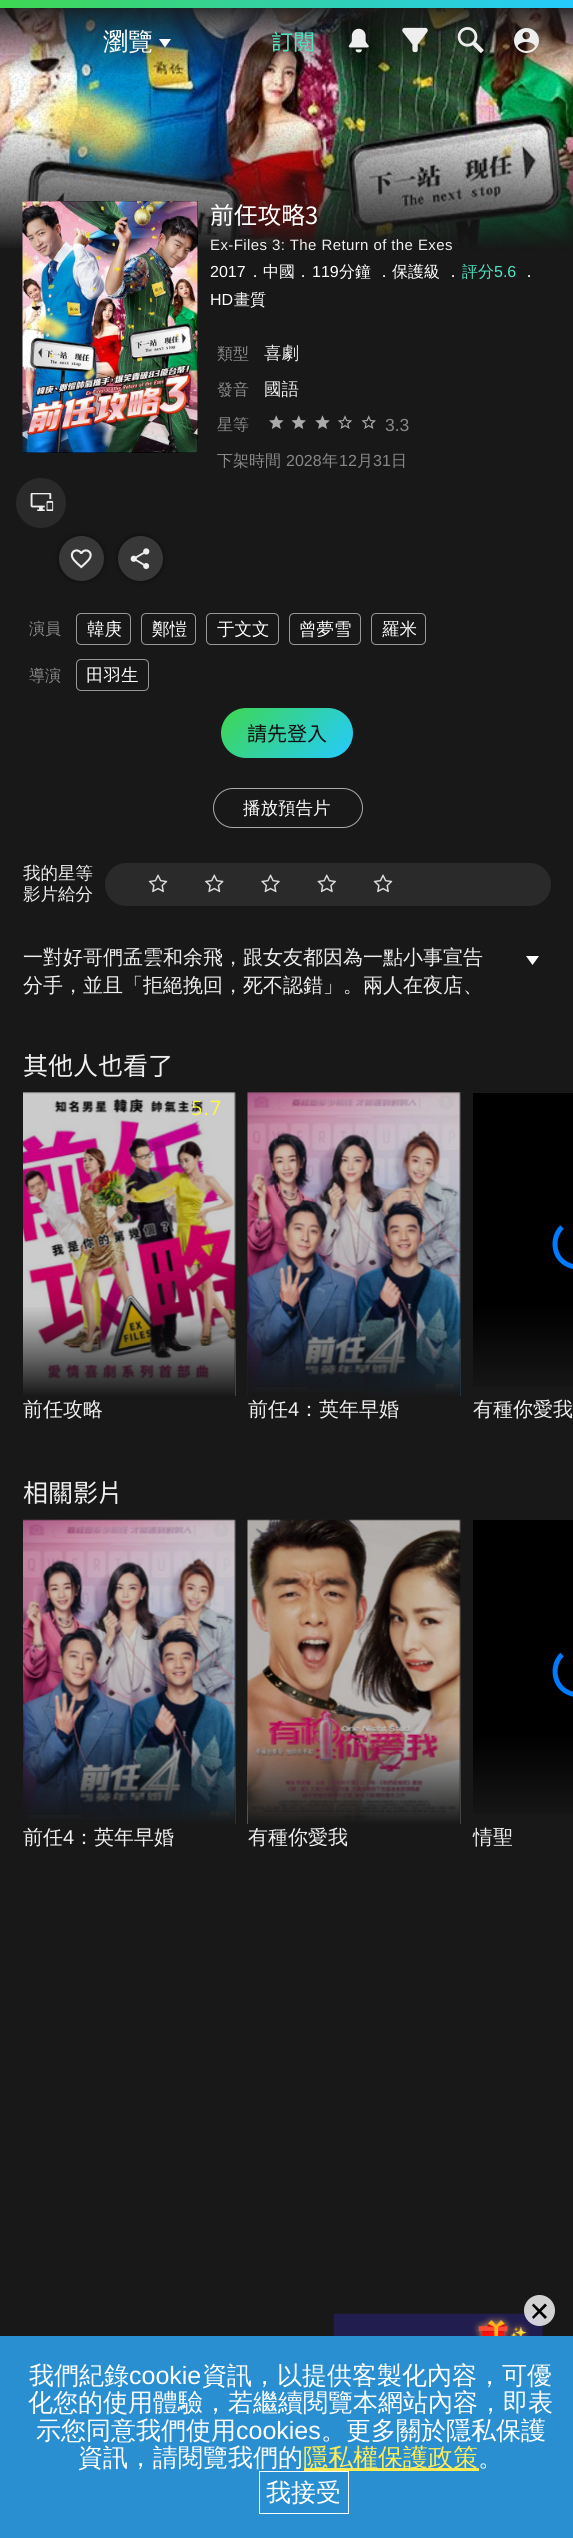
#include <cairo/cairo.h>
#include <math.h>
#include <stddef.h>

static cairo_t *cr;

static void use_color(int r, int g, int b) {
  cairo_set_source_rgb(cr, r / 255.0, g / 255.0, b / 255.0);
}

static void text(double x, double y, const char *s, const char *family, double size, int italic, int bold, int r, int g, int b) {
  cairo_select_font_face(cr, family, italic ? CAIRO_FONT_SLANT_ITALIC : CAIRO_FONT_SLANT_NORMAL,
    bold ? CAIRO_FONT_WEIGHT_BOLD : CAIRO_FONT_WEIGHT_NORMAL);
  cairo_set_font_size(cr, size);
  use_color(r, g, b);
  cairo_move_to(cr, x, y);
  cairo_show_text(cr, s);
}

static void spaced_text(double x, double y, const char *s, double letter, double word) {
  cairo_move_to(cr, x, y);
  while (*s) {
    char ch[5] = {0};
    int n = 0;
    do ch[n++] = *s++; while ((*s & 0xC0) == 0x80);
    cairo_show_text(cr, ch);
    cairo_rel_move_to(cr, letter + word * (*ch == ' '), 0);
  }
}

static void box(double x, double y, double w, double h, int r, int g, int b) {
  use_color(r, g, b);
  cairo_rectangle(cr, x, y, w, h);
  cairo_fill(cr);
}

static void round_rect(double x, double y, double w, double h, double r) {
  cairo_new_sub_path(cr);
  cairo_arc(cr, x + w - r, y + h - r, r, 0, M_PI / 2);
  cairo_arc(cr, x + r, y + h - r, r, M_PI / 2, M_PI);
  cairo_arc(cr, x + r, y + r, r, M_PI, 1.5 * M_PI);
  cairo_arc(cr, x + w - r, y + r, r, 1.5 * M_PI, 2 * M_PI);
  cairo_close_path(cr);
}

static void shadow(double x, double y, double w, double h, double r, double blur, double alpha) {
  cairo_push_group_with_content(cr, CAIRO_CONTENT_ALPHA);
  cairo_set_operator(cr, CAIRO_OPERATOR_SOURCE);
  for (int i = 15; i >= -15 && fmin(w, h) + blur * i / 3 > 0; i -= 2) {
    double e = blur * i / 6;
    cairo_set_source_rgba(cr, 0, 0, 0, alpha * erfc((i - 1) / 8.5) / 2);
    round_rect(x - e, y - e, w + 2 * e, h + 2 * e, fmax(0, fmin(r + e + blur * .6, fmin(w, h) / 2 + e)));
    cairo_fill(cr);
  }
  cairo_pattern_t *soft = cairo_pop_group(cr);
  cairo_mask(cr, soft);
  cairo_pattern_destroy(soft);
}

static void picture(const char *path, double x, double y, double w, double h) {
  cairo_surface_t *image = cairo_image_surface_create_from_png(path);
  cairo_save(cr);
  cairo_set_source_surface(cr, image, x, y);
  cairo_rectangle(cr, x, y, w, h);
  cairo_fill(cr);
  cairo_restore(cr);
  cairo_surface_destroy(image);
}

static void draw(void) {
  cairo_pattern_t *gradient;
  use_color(24, 24, 24);
  cairo_paint(cr);
  picture("img_05.png", 0, 8, 573, 241);
  picture("img_06.png", 0, 8, 573, 242);
  gradient = cairo_pattern_create_linear(287, 0, 287, 75);
  cairo_pattern_add_color_stop_rgba(gradient, 0, 0.094, 0.094, 0.094, 1);
  cairo_pattern_add_color_stop_rgba(gradient, 1, 0.094, 0.094, 0.094, 0);
  cairo_set_source(cr, gradient);
  cairo_pattern_destroy(gradient);
  cairo_rectangle(cr, 0, 8, 573, 65);
  cairo_fill(cr);
  gradient = cairo_pattern_create_linear(140, -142, 434, 149);
  cairo_pattern_add_color_stop_rgba(gradient, 0, 0.247, 0.843, 0.314, 1);
  cairo_pattern_add_color_stop_rgba(gradient, 1, 0.141, 0.796, 1, 1);
  cairo_set_source(cr, gradient);
  cairo_pattern_destroy(gradient);
  cairo_rectangle(cr, 0, 0, 573, 8);
  cairo_fill(cr);
  use_color(255, 255, 255);
  cairo_new_path(cr);
  cairo_move_to(cr, 159, 39);
  cairo_line_to(cr, 171, 39);
  cairo_line_to(cr, 165, 47.5);
  cairo_close_path(cr);
  cairo_fill(cr);
  picture("img_01.png", 348, 28, 21, 25);
  picture("img_02.png", 402, 27, 26, 26);
  picture("img_03.png", 457, 27, 27, 26);
  picture("img_04.png", 514, 28, 25, 25);
  box(23, 201, 175, 252, 0, 0, 0);
  picture("img_07.png", 22, 201, 176, 252);
  use_color(0, 0, 0);
  shadow(59, 536, 45, 45, 22.5, 3, 0.5);
  use_color(42, 42, 42);
  cairo_arc(cr, 41, 503, 25, 0, 2 * M_PI);
  cairo_fill(cr);
  picture("img_08.png", 30, 493, 24, 18);
  use_color(56, 56, 56);
  cairo_arc(cr, 81.5, 558.5, 22.5, 0, 2 * M_PI);
  cairo_fill(cr);
  picture("img_09.png", 70, 549, 22, 20);
  use_color(0, 0, 0);
  shadow(118, 536, 45, 45, 22.5, 3, 0.5);
  use_color(56, 56, 56);
  cairo_arc(cr, 140.5, 558.5, 22.5, 0, 2 * M_PI);
  cairo_fill(cr);
  picture("img_10.png", 130, 548, 20, 21);
  picture("img_11.png", 269, 415, 15, 14);
  picture("img_12.png", 291, 415, 15, 14);
  picture("img_13.png", 315, 415, 15, 14);
  picture("img_14.png", 337, 415, 16, 14);
  picture("img_15.png", 361, 415, 15, 14);
  round_rect(76.5, 613.5, 54, 31, 4.5);
  use_color(151, 151, 151);
  cairo_set_line_width(cr, 1);
  cairo_stroke(cr);
  round_rect(141.5, 613.5, 54, 31, 4.5);
  cairo_stroke(cr);
  round_rect(206.5, 613.5, 72, 31, 4.5);
  cairo_stroke(cr);
  round_rect(289.5, 613.5, 71, 31, 4.5);
  cairo_stroke(cr);
  round_rect(371.5, 613.5, 54, 31, 4.5);
  cairo_stroke(cr);
  round_rect(76.5, 659.5, 72, 31, 4.5);
  cairo_stroke(cr);
  gradient = cairo_pattern_create_linear(241, 687, 333, 778);
  cairo_pattern_add_color_stop_rgba(gradient, 0, 0.247, 0.843, 0.314, 1);
  cairo_pattern_add_color_stop_rgba(gradient, 1, 0.141, 0.796, 1, 1);
  cairo_set_source(cr, gradient);
  cairo_pattern_destroy(gradient);
  round_rect(221, 708, 132, 50, 25);
  cairo_fill(cr);
  round_rect(213.5, 788.5, 149, 39, 19.5);
  use_color(170, 170, 170);
  cairo_stroke(cr);
  use_color(42, 42, 42);
  round_rect(105, 863, 446, 43, 21.5);
  cairo_fill(cr);
  picture("img_16.png", 148, 874, 20, 19);
  picture("img_17.png", 205, 874, 19, 19);
  picture("img_18.png", 261, 874, 19, 19);
  picture("img_19.png", 317, 874, 19, 19);
  picture("img_16.png", 373, 874, 20, 19);
  use_color(255, 255, 255);
  cairo_new_path(cr);
  cairo_move_to(cr, 526, 956);
  cairo_line_to(cr, 539, 956);
  cairo_line_to(cr, 532.5, 965);
  cairo_close_path(cr);
  cairo_fill(cr);
  box(23, 1093, 212, 302, 0, 0, 0);
  picture("img_20.png", 23, 1092, 213, 304);
  gradient = cairo_pattern_create_linear(129, 1093, 129, 1396);
  cairo_pattern_add_color_stop_rgba(gradient, 0.7, 0.094, 0.094, 0.094, 0);
  cairo_pattern_add_color_stop_rgba(gradient, 1, 0.094, 0.094, 0.094, 1);
  cairo_set_source(cr, gradient);
  cairo_pattern_destroy(gradient);
  cairo_rectangle(cr, 23, 1307, 212, 89);
  cairo_fill(cr);
  box(248, 1093, 212, 302, 0, 0, 0);
  picture("img_21.png", 247, 1092, 214, 304);
  gradient = cairo_pattern_create_linear(354, 1093, 354, 1396);
  cairo_pattern_add_color_stop_rgba(gradient, 0.7, 0.094, 0.094, 0.094, 0);
  cairo_pattern_add_color_stop_rgba(gradient, 1, 0.094, 0.094, 0.094, 1);
  cairo_set_source(cr, gradient);
  cairo_pattern_destroy(gradient);
  cairo_rectangle(cr, 248, 1307, 212, 89);
  cairo_fill(cr);
  gradient = cairo_pattern_create_linear(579, 1093, 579, 1396);
  cairo_pattern_add_color_stop_rgba(gradient, 0.7, 0, 0, 0, 1);
  cairo_pattern_add_color_stop_rgba(gradient, 1, 0.094, 0.094, 0.094, 1);
  cairo_set_source(cr, gradient);
  cairo_pattern_destroy(gradient);
  cairo_rectangle(cr, 473, 1093, 100, 294);
  cairo_fill(cr);
  cairo_new_path(cr);
  cairo_move_to(cr, 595.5, 1227);
  cairo_curve_to(cr, 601, 1232.5, 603.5, 1240.5, 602, 1248.5);
  cairo_curve_to(cr, 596.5, 1276, 555, 1272, 555, 1244);
  cairo_curve_to(cr, 555, 1237.5, 557.5, 1231.5, 562, 1227);
  use_color(0, 122, 255);
  cairo_set_line_width(cr, 5);
  cairo_stroke(cr);
  box(23, 1520, 212, 303, 0, 0, 0);
  picture("img_22.png", 23, 1519, 213, 305);
  gradient = cairo_pattern_create_linear(129, 1520, 129, 1824);
  cairo_pattern_add_color_stop_rgba(gradient, 0.7, 0.094, 0.094, 0.094, 0);
  cairo_pattern_add_color_stop_rgba(gradient, 1, 0.094, 0.094, 0.094, 1);
  cairo_set_source(cr, gradient);
  cairo_pattern_destroy(gradient);
  cairo_rectangle(cr, 23, 1735, 212, 89);
  cairo_fill(cr);
  box(248, 1520, 212, 303, 0, 0, 0);
  picture("img_23.png", 247, 1519, 214, 305);
  gradient = cairo_pattern_create_linear(354, 1520, 354, 1824);
  cairo_pattern_add_color_stop_rgba(gradient, 0.7, 0.094, 0.094, 0.094, 0);
  cairo_pattern_add_color_stop_rgba(gradient, 1, 0.094, 0.094, 0.094, 1);
  cairo_set_source(cr, gradient);
  cairo_pattern_destroy(gradient);
  cairo_rectangle(cr, 248, 1735, 212, 89);
  cairo_fill(cr);
  gradient = cairo_pattern_create_linear(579, 1520, 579, 1824);
  cairo_pattern_add_color_stop_rgba(gradient, 0.7, 0, 0, 0, 1);
  cairo_pattern_add_color_stop_rgba(gradient, 1, 0.094, 0.094, 0.094, 1);
  cairo_set_source(cr, gradient);
  cairo_pattern_destroy(gradient);
  cairo_rectangle(cr, 473, 1520, 100, 294);
  cairo_fill(cr);
  cairo_new_path(cr);
  cairo_move_to(cr, 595.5, 1654.5);
  cairo_curve_to(cr, 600, 1659, 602.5, 1665, 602.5, 1671);
  cairo_curve_to(cr, 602.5, 1699.5, 561, 1703.5, 555.5, 1676);
  cairo_curve_to(cr, 554, 1668, 556.5, 1660, 562, 1654.5);
  use_color(0, 122, 255);
  cairo_stroke(cr);
  picture("img_24.png", 333, 2313, 210, 23);
  cairo_set_source_rgba(cr, 1, 1, 1, 0.8);
  cairo_arc(cr, 539.5, 2310.5, 15.5, 0, 2 * M_PI);
  cairo_fill(cr);
  use_color(0, 0, 0);
  cairo_new_path(cr);
  cairo_move_to(cr, 532, 2317);
  cairo_line_to(cr, 545, 2303.5);
  cairo_line_to(cr, 547, 2305.5);
  cairo_line_to(cr, 533.5, 2319);
  cairo_close_path(cr);
  cairo_fill(cr);
  cairo_new_path(cr);
  cairo_move_to(cr, 533.5, 2303.5);
  cairo_line_to(cr, 547, 2317);
  cairo_line_to(cr, 545, 2319);
  cairo_line_to(cr, 532, 2305.5);
  cairo_close_path(cr);
  cairo_fill(cr);
  box(0, 2336, 573, 202, 41, 143, 209);
  box(304, 2468, 175, 3, 253, 236, 87);
  cairo_rectangle(cr, 259.5, 2471.5, 89, 42);
  use_color(255, 255, 255);
  cairo_set_line_width(cr, 1);
  cairo_stroke(cr);
  text(103, 50, "瀏覽", "WenQuanYi Zen Hei Medium", 25, 0, 0, 255, 255, 255);
  text(271, 50, "訂閱", "Noto Sans TC Thin", 22, 0, 0, 80, 227, 194);
  text(210, 224, "前任攻略3", "Noto Sans TC Thin", 23.75, 0, 0, 255, 255, 255);
  cairo_select_font_face(cr, "Liberation Sans", CAIRO_FONT_SLANT_NORMAL, CAIRO_FONT_WEIGHT_NORMAL);
  cairo_set_font_size(cr, 15);
  use_color(238, 238, 238);
  spaced_text(210, 250, "Ex-Files 3: The Return of the Exes", 0.4, 0);
  text(210, 277, "2017", "Liberation Sans", 16, 0, 0, 255, 255, 255);
  text(247, 277, "．中國．", "WenQuanYi Zen Hei Medium", 16, 0, 0, 255, 255, 255);
  text(312, 277, "119", "Liberation Sans", 16, 0, 0, 255, 255, 255);
  text(339, 277, "分鐘", "WenQuanYi Zen Hei Medium", 16, 0, 0, 255, 255, 255);
  text(376, 277, "．保護級", "WenQuanYi Zen Hei Medium", 16, 0, 0, 255, 255, 255);
  text(445, 277, "．", "WenQuanYi Zen Hei Medium", 16, 0, 0, 255, 255, 255);
  text(462, 277, "評分", "WenQuanYi Zen Hei Medium", 16, 0, 0, 80, 227, 194);
  text(494, 277, "5.6", "Liberation Sans", 16, 0, 0, 80, 227, 194);
  text(521, 277, "．", "WenQuanYi Zen Hei Medium", 16, 0, 0, 255, 255, 255);
  text(210, 305, "HD", "Liberation Sans", 16, 0, 0, 255, 255, 255);
  text(234, 305, "畫質", "WenQuanYi Zen Hei Medium", 16, 0, 0, 255, 255, 255);
  text(217, 359, "類型", "WenQuanYi Zen Hei Medium", 16, 0, 0, 136, 136, 136);
  text(264, 359, "喜劇", "WenQuanYi Zen Hei Medium", 17.5, 0, 0, 238, 238, 238);
  text(217, 395, "發音", "WenQuanYi Zen Hei Medium", 16, 0, 0, 136, 136, 136);
  text(264, 395, "國語", "WenQuanYi Zen Hei Medium", 17.5, 0, 0, 238, 238, 238);
  text(217, 430, "星等", "WenQuanYi Zen Hei Medium", 16, 0, 0, 136, 136, 136);
  text(385, 431, "3.3", "Liberation Sans", 17.5, 0, 0, 136, 136, 136);
  text(217, 466, "下架時間", "WenQuanYi Zen Hei Medium", 16, 0, 0, 136, 136, 136);
  text(286, 466, "2028", "Liberation Sans", 16, 0, 0, 136, 136, 136);
  text(322, 466, "年", "WenQuanYi Zen Hei Medium", 16, 0, 0, 136, 136, 136);
  text(339, 466, "12", "Liberation Sans", 16, 0, 0, 136, 136, 136);
  text(357, 466, "月", "WenQuanYi Zen Hei Medium", 16, 0, 0, 136, 136, 136);
  text(373, 466, "31", "Liberation Sans", 16, 0, 0, 136, 136, 136);
  text(391, 466, "日", "WenQuanYi Zen Hei Medium", 16, 0, 0, 136, 136, 136);
  text(29, 634, "演員", "WenQuanYi Zen Hei Medium", 16, 0, 0, 136, 136, 136);
  text(87, 635, "韓庚", "WenQuanYi Zen Hei Medium", 17.5, 0, 0, 255, 255, 255);
  text(152, 635, "鄭愷", "WenQuanYi Zen Hei Medium", 17.5, 0, 0, 255, 255, 255);
  text(217, 635, "于文文", "WenQuanYi Zen Hei Medium", 17.5, 0, 0, 255, 255, 255);
  text(299, 635, "曾夢雪", "WenQuanYi Zen Hei Medium", 17.5, 0, 0, 255, 255, 255);
  text(382, 635, "羅米", "WenQuanYi Zen Hei Medium", 17.5, 0, 0, 255, 255, 255);
  text(29, 681, "導演", "WenQuanYi Zen Hei Medium", 16, 0, 0, 136, 136, 136);
  text(86, 681, "田羽生", "WenQuanYi Zen Hei Medium", 17.5, 0, 0, 255, 255, 255);
  text(247, 741, "請先登入", "Noto Sans TC Thin", 20, 0, 0, 17, 17, 17);
  text(243, 814, "播放預告片", "WenQuanYi Zen Hei Medium", 17.5, 0, 0, 255, 255, 255);
  text(23, 879, "我的星等", "WenQuanYi Zen Hei Medium", 17.5, 0, 0, 238, 238, 238);
  text(23, 900, "影片給分", "WenQuanYi Zen Hei Medium", 17.5, 0, 0, 238, 238, 238);
  text(23, 964, "一對好哥們孟雲和余飛，跟女友都因為一點小事宣告", "WenQuanYi Zen Hei Medium", 20, 0, 0, 238, 238, 238);
  text(23, 992, "分手，並且「拒絕挽回，死不認錯」。兩人在夜店、", "WenQuanYi Zen Hei Medium", 20, 0, 0, 238, 238, 238);
  text(23, 1075, "其他人也看了", "Noto Sans TC Thin", 25, 0, 0, 238, 238, 238);
  cairo_select_font_face(cr, "Open Sans", CAIRO_FONT_SLANT_NORMAL, CAIRO_FONT_WEIGHT_NORMAL);
  cairo_set_font_size(cr, 20);
  use_color(255, 246, 70);
  spaced_text(191, 1115, "5.7", 1, 0);
  text(23, 1416, "前任攻略", "WenQuanYi Zen Hei Medium", 20, 0, 0, 238, 238, 238);
  text(248, 1416, "前任", "WenQuanYi Zen Hei Medium", 20, 0, 0, 238, 238, 238);
  text(288, 1416, "4", "Liberation Sans", 20, 0, 0, 238, 238, 238);
  text(299, 1416, "：英年早婚", "WenQuanYi Zen Hei Medium", 20, 0, 0, 238, 238, 238);
  text(473, 1416, "有種你愛我", "WenQuanYi Zen Hei Medium", 20, 0, 0, 238, 238, 238);
  text(23, 1502, "相關影片", "Noto Sans TC Thin", 25, 0, 0, 238, 238, 238);
  text(23, 1844, "前任", "WenQuanYi Zen Hei Medium", 20, 0, 0, 238, 238, 238);
  text(63, 1844, "4", "Liberation Sans", 20, 0, 0, 238, 238, 238);
  text(74, 1844, "：英年早婚", "WenQuanYi Zen Hei Medium", 20, 0, 0, 238, 238, 238);
  text(248, 1844, "有種你愛我", "WenQuanYi Zen Hei Medium", 20, 0, 0, 238, 238, 238);
  text(473, 1844, "情聖", "WenQuanYi Zen Hei Medium", 20, 0, 0, 238, 238, 238);
  text(29, 2384, "我們紀錄", "WenQuanYi Zen Hei Medium", 25, 0, 0, 255, 255, 255);
  text(129, 2384, "cookie", "Liberation Sans", 25, 0, 0, 255, 255, 255);
  text(202, 2384, "資訊，以提供客製化內容，可優", "WenQuanYi Zen Hei Medium", 25, 0, 0, 255, 255, 255);
  text(28, 2411, "化您的使用體驗，若繼續閱覽本網站內容，即表", "WenQuanYi Zen Hei Medium", 25, 0, 0, 255, 255, 255);
  text(36, 2439, "示您同意我們使用", "WenQuanYi Zen Hei Medium", 25, 0, 0, 255, 255, 255);
  text(236, 2439, "cookies", "Liberation Sans", 25, 0, 0, 255, 255, 255);
  text(321, 2439, "。更多關於隱私保護", "WenQuanYi Zen Hei Medium", 25, 0, 0, 255, 255, 255);
  text(78, 2466, "資訊，請閱覽我們的", "WenQuanYi Zen Hei Medium", 25, 0, 0, 255, 255, 255);
  text(303, 2466, "隱私權保護政策", "WenQuanYi Zen Hei Medium", 25, 0, 0, 253, 236, 87);
  text(478, 2466, "。", "WenQuanYi Zen Hei Medium", 25, 0, 0, 255, 255, 255);
  text(266, 2501, "我接受", "WenQuanYi Zen Hei Medium", 25, 0, 0, 255, 255, 255);
}

int main(void) {
  cairo_surface_t *surface = cairo_image_surface_create(CAIRO_FORMAT_RGB24, 573, 2538);
  cr = cairo_create(surface);
  cairo_font_options_t *options = cairo_font_options_create();
  cairo_font_options_set_hint_metrics(options, CAIRO_HINT_METRICS_OFF);
  cairo_font_options_set_hint_style(options, CAIRO_HINT_STYLE_NONE);
  cairo_set_font_options(cr, options);
  cairo_set_miter_limit(cr, 4);
  draw();
  cairo_surface_write_to_png(surface, "out.png");
  cairo_font_options_destroy(options);
  cairo_destroy(cr);
  cairo_surface_destroy(surface);
  return 0;
}
